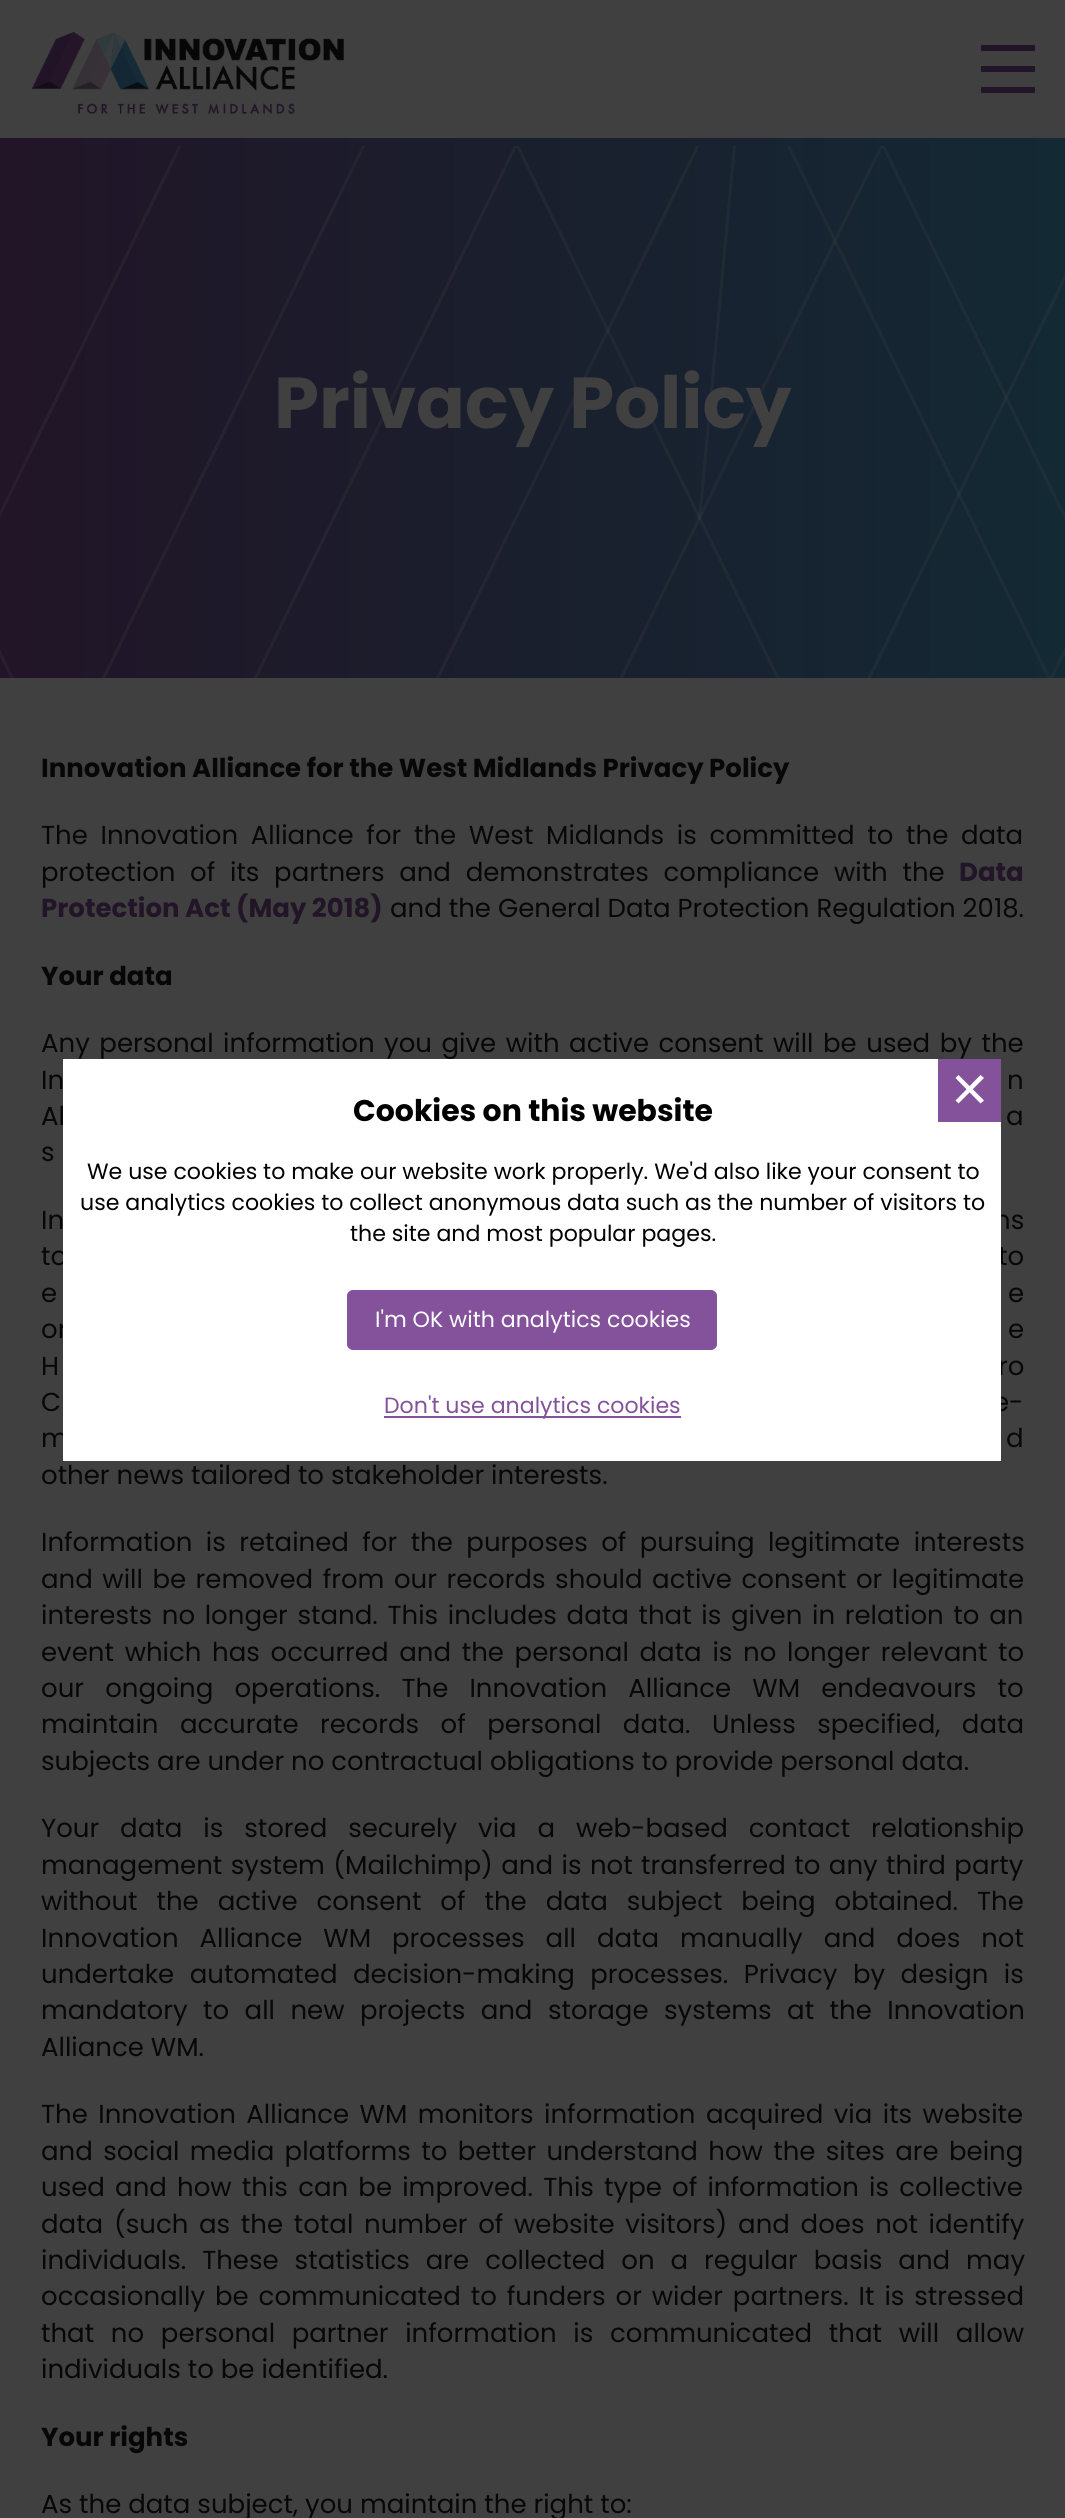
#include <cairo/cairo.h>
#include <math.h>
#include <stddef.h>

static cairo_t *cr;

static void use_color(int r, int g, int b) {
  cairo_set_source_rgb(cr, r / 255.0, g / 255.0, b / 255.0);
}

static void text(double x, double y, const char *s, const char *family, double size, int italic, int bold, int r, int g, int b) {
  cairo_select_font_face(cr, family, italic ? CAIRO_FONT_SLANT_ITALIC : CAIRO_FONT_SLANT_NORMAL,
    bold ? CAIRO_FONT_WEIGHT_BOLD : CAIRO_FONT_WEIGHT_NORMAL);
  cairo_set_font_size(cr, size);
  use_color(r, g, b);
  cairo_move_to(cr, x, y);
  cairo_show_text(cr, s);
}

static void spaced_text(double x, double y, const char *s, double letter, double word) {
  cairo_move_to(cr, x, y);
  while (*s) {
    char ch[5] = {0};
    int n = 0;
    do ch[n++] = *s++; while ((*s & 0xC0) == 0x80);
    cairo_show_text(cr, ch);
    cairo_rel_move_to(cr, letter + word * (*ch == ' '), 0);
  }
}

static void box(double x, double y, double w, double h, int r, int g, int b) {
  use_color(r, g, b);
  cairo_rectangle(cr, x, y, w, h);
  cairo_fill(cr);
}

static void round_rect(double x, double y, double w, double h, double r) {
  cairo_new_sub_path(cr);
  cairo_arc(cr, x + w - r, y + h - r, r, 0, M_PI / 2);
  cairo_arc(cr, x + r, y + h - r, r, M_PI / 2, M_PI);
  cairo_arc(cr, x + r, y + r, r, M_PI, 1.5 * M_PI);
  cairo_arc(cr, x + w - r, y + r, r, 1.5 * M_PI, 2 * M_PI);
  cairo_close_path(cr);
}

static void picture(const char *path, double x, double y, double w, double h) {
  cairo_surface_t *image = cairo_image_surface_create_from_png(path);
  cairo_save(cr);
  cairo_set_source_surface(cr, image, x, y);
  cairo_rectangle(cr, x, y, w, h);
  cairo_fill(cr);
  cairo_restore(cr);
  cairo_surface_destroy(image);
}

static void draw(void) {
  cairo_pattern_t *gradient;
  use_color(64, 64, 64);
  cairo_paint(cr);
  picture("img_01.png", 31, 31, 313, 83);
  box(981, 66, 54, 6, 33, 21, 39);
  box(981, 45, 54, 6, 33, 21, 39);
  box(981, 87, 54, 6, 33, 21, 39);
  gradient = cairo_pattern_create_linear(0, 142, 1065, 142);
  cairo_pattern_add_color_stop_rgba(gradient, 0, 0.129, 0.082, 0.153, 1);
  cairo_pattern_add_color_stop_rgba(gradient, 1, 0.075, 0.161, 0.204, 1);
  cairo_set_source(cr, gradient);
  cairo_pattern_destroy(gradient);
  cairo_rectangle(cr, 0, 138, 1065, 8);
  cairo_fill(cr);
  gradient = cairo_pattern_create_linear(0, 412, 1065, 412);
  cairo_pattern_add_color_stop_rgba(gradient, 0, 0.129, 0.082, 0.153, 1);
  cairo_pattern_add_color_stop_rgba(gradient, 1, 0.075, 0.161, 0.204, 1);
  cairo_set_source(cr, gradient);
  cairo_pattern_destroy(gradient);
  cairo_rectangle(cr, 0, 146, 1065, 532);
  cairo_fill(cr);
  picture("img_02.png", 0, 146, 1065, 532);
  text(274, 428, "Privacy Policy", "Poppins", 72, 0, 1, 64, 64, 64);
  text(41, 777, "Innovation Alliance for the West Midlands Privacy Policy", "Poppins", 26, 0, 1, 7, 7, 7);
  cairo_select_font_face(cr, "Poppins", CAIRO_FONT_SLANT_NORMAL, CAIRO_FONT_WEIGHT_NORMAL);
  spaced_text(41, 844, "The Innovation Alliance for the West Midlands is committed to the data", 0, 5.75);
  spaced_text(41, 881, "protection of its partners and demonstrates compliance with the", 0, 7.75);
  text(959, 881, "Data", "Poppins", 26, 0, 1, 33, 21, 39);
  text(41, 917, "Protection Act (May 2018)", "Poppins", 26, 0, 1, 33, 21, 39);
  text(390, 917, "and the General Data Protection Regulation 2018.", "Poppins", 26, 0, 0, 7, 7, 7);
  text(41, 985, "Your data", "Poppins", 26, 0, 1, 7, 7, 7);
  cairo_select_font_face(cr, "Poppins", CAIRO_FONT_SLANT_NORMAL, CAIRO_FONT_WEIGHT_NORMAL);
  spaced_text(41, 1052, "Any personal information you give with active consent will be used by the", 0, 2.6);
  spaced_text(41, 1089, "In", 0, 13);
  spaced_text(1007, 1089, "n", 0, 13);
  spaced_text(41, 1125, "Al", 0, 5);
  spaced_text(1006, 1125, "a", 0, 5);
  text(41, 1161, "s", "Poppins", 26, 0, 0, 7, 7, 7);
  spaced_text(41, 1229, "In", 0, 1);
  spaced_text(994, 1229, "ns", 0, 1);
  spaced_text(41, 1265, "to", 0, 8);
  spaced_text(998, 1265, "to", 0, 8);
  spaced_text(41, 1302, "e", 0, 1);
  spaced_text(1008, 1302, "e", 0, 1);
  spaced_text(41, 1338, "or", 0, 11);
  spaced_text(1008, 1338, "e", 0, 11);
  spaced_text(41, 1375, "H", 0, 11);
  spaced_text(998, 1375, "ro", 0, 11);
  spaced_text(41, 1411, "C", 0, 1);
  spaced_text(993, 1411, "e-", 0, 1);
  spaced_text(41, 1447, "m", 0, 6);
  spaced_text(1006, 1447, "d", 0, 6);
  text(41, 1484, "other news tailored to stakeholder interests.", "Poppins", 26, 0, 0, 7, 7, 7);
  spaced_text(41, 1551, "Information is retained for the purposes of pursuing legitimate interests", 0, 6.5);
  spaced_text(41, 1588, "and will be removed from our records should active consent or legitimate", 0, 2.6);
  spaced_text(41, 1624, "interests no longer stand. This includes data that is given in relation to an", 0, 2.75);
  spaced_text(41, 1661, "event which has occurred and the personal data is no longer relevant to", 0, 3.75);
  spaced_text(41, 1697, "our ongoing operations. The Innovation Alliance WM endeavours to", 0, 14.25);
  spaced_text(41, 1733, "maintain accurate records of personal data. Unless specified, data", 0, 14.5);
  text(41, 1770, "subjects are under no contractual obligations to provide personal data.", "Poppins", 26, 0, 0, 7, 7, 7);
  spaced_text(41, 1837, "Your data is stored securely via a web-based contact relationship", 0, 14);
  spaced_text(41, 1874, "management system (Mailchimp) and is not transferred to any third party", 0, 1.5);
  spaced_text(41, 1910, "without the active consent of the data subject being obtained. The", 0, 12);
  spaced_text(41, 1947, "Innovation Alliance WM processes all data manually and does not", 0, 14);
  spaced_text(41, 1983, "undertake automated decision-making processes. Privacy by design is", 0, 8.5);
  spaced_text(41, 2019, "mandatory to all new projects and storage systems at the Innovation", 0, 8.5);
  text(41, 2056, "Alliance WM.", "Poppins", 26, 0, 0, 7, 7, 7);
  spaced_text(41, 2123, "The Innovation Alliance WM monitors information acquired via its website", 0, 3.5);
  spaced_text(41, 2160, "and social media platforms to better understand how the sites are being", 0, 3.4);
  spaced_text(41, 2196, "used and how this can be improved. This type of information is collective", 0, 3.25);
  spaced_text(41, 2233, "data (such as the total number of website visitors) and does not identify", 0, 3.75);
  spaced_text(41, 2269, "individuals. These statistics are collected on a regular basis and may", 0, 9);
  spaced_text(41, 2305, "occasionally be communicated to funders or wider partners. It is stressed", 0, 3);
  spaced_text(41, 2342, "that no personal partner information is communicated that will allow", 0, 9.75);
  text(41, 2378, "individuals to be identified.", "Poppins", 26, 0, 0, 7, 7, 7);
  text(41, 2446, "Your rights", "Poppins", 26, 0, 1, 7, 7, 7);
  text(41, 2513, "As the data subject, you maintain the right to:", "Poppins", 26, 0, 0, 7, 7, 7);
  box(63, 1059, 938, 402, 255, 255, 255);
  text(353, 1121, "Cookies on this website", "Poppins", 29.9, 0, 1, 0, 0, 0);
  box(938, 1059, 63, 63, 132, 82, 155);
  use_color(255, 255, 255);
  cairo_new_path(cr);
  cairo_move_to(cr, 980.5, 1075);
  cairo_line_to(cr, 984, 1078);
  cairo_line_to(cr, 958.5, 1103.5);
  cairo_line_to(cr, 955.5, 1100.5);
  cairo_close_path(cr);
  cairo_fill(cr);
  cairo_new_path(cr);
  cairo_move_to(cr, 955.5, 1078);
  cairo_line_to(cr, 958.5, 1075);
  cairo_line_to(cr, 984, 1100.5);
  cairo_line_to(cr, 980.5, 1103.5);
  cairo_close_path(cr);
  cairo_fill(cr);
  text(87, 1179, "We use cookies to make our website work properly. We'd also like your consent to", "Poppins", 22.1, 0, 0, 0, 0, 0);
  text(80, 1210, "use analytics cookies to collect anonymous data such as the number of visitors to", "Poppins", 22.1, 0, 0, 0, 0, 0);
  text(350, 1241, "the site and most popular pages.", "Poppins", 22.1, 0, 0, 0, 0, 0);
  use_color(132, 82, 155);
  round_rect(348, 1291, 368, 58, 5);
  cairo_fill_preserve(cr);
  cairo_stroke(cr);
  text(375, 1327, "I'm OK with analytics cookies", "Poppins", 22.1, 0, 0, 255, 255, 255);
  box(384, 1416, 297, 2, 132, 82, 155);
  text(384, 1413, "Don't use analytics cookies", "Poppins", 22.1, 0, 0, 132, 82, 155);
}

int main(void) {
  cairo_surface_t *surface = cairo_image_surface_create(CAIRO_FORMAT_RGB24, 1065, 2518);
  cr = cairo_create(surface);
  cairo_font_options_t *options = cairo_font_options_create();
  cairo_font_options_set_hint_metrics(options, CAIRO_HINT_METRICS_OFF);
  cairo_font_options_set_hint_style(options, CAIRO_HINT_STYLE_NONE);
  cairo_set_font_options(cr, options);
  cairo_set_miter_limit(cr, 4);
  draw();
  cairo_surface_write_to_png(surface, "out.png");
  cairo_font_options_destroy(options);
  cairo_destroy(cr);
  cairo_surface_destroy(surface);
  return 0;
}
